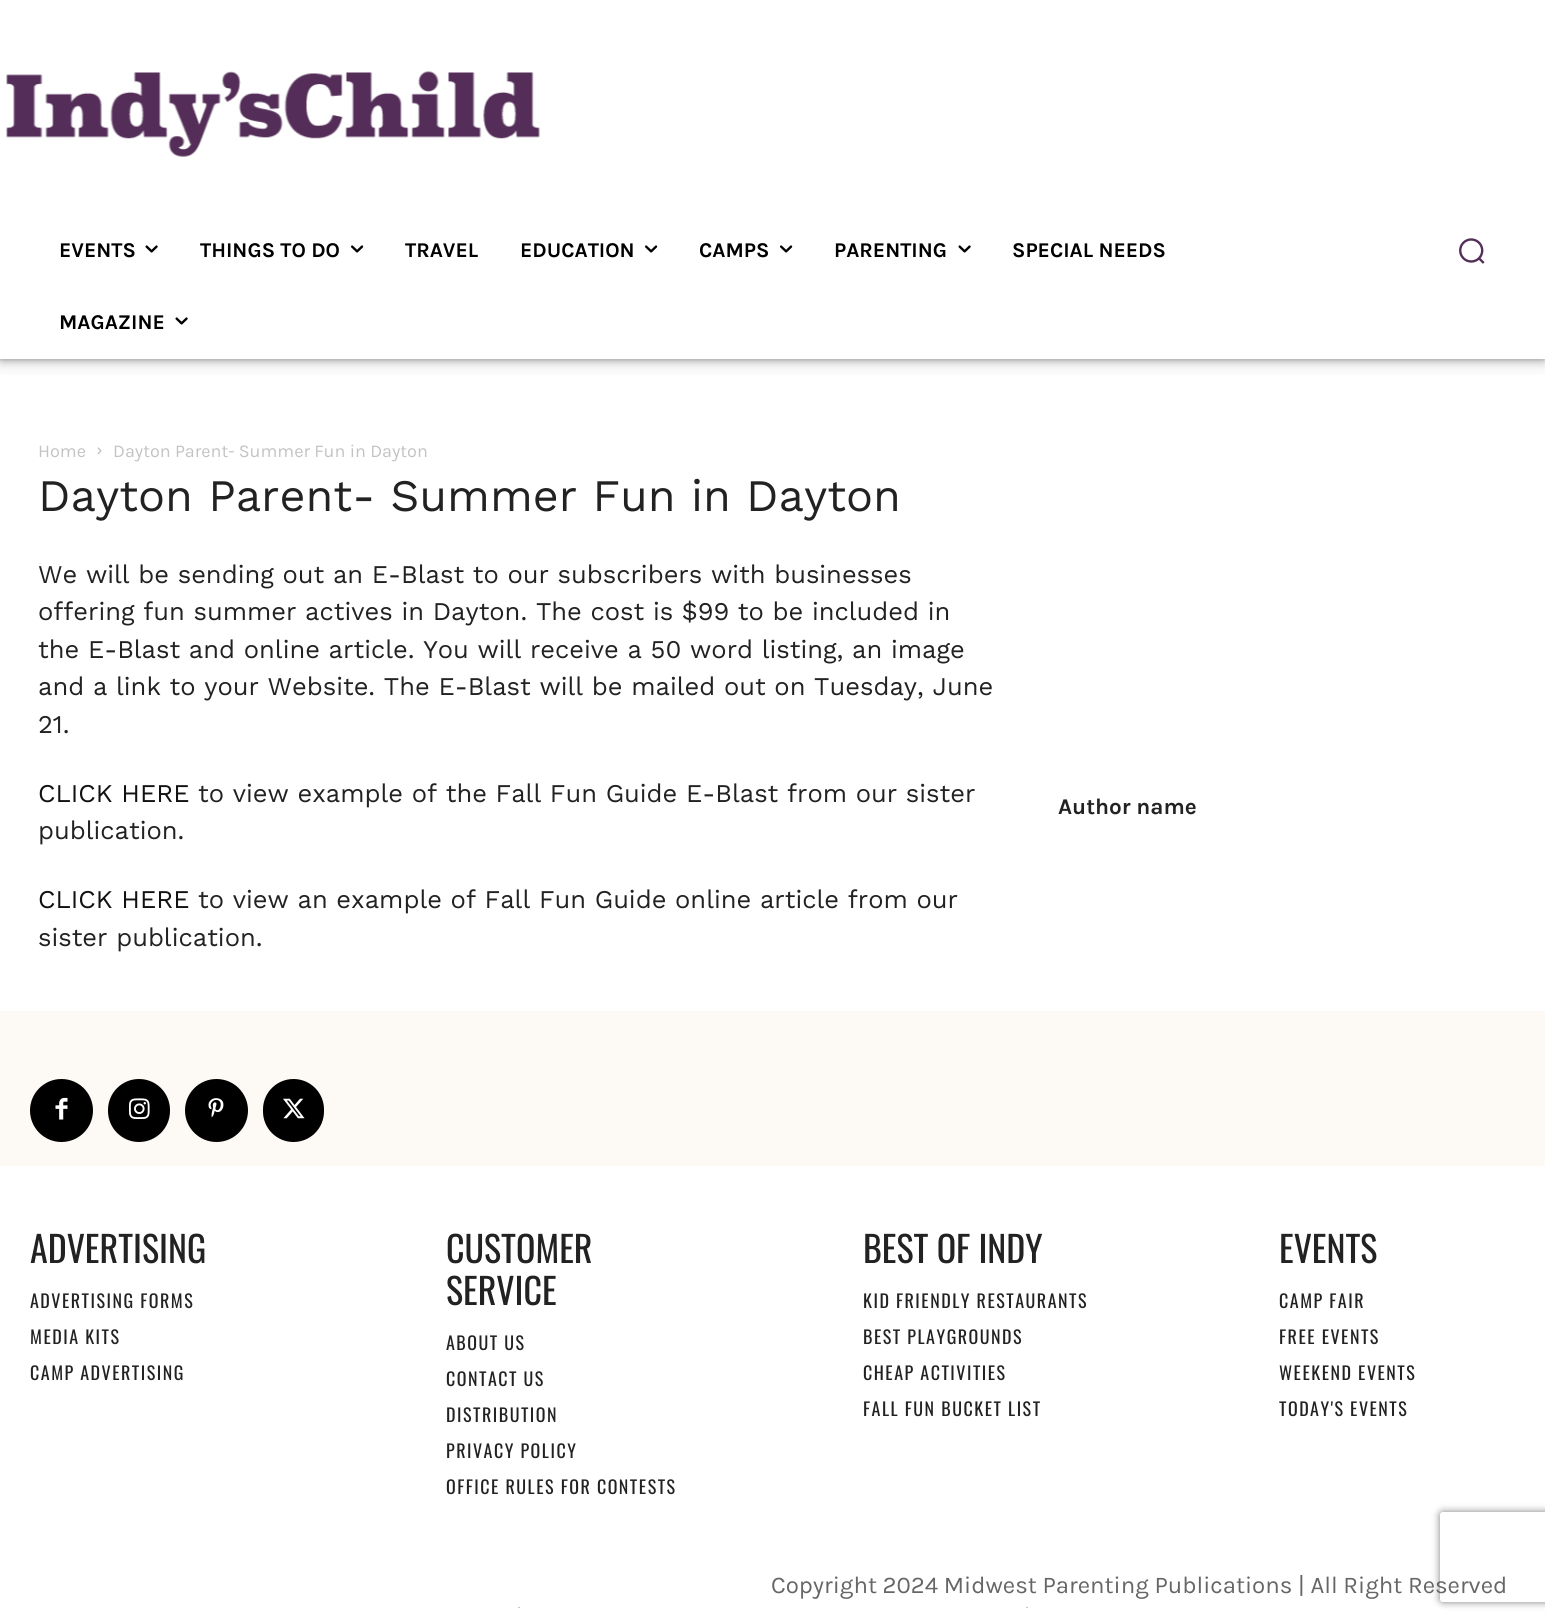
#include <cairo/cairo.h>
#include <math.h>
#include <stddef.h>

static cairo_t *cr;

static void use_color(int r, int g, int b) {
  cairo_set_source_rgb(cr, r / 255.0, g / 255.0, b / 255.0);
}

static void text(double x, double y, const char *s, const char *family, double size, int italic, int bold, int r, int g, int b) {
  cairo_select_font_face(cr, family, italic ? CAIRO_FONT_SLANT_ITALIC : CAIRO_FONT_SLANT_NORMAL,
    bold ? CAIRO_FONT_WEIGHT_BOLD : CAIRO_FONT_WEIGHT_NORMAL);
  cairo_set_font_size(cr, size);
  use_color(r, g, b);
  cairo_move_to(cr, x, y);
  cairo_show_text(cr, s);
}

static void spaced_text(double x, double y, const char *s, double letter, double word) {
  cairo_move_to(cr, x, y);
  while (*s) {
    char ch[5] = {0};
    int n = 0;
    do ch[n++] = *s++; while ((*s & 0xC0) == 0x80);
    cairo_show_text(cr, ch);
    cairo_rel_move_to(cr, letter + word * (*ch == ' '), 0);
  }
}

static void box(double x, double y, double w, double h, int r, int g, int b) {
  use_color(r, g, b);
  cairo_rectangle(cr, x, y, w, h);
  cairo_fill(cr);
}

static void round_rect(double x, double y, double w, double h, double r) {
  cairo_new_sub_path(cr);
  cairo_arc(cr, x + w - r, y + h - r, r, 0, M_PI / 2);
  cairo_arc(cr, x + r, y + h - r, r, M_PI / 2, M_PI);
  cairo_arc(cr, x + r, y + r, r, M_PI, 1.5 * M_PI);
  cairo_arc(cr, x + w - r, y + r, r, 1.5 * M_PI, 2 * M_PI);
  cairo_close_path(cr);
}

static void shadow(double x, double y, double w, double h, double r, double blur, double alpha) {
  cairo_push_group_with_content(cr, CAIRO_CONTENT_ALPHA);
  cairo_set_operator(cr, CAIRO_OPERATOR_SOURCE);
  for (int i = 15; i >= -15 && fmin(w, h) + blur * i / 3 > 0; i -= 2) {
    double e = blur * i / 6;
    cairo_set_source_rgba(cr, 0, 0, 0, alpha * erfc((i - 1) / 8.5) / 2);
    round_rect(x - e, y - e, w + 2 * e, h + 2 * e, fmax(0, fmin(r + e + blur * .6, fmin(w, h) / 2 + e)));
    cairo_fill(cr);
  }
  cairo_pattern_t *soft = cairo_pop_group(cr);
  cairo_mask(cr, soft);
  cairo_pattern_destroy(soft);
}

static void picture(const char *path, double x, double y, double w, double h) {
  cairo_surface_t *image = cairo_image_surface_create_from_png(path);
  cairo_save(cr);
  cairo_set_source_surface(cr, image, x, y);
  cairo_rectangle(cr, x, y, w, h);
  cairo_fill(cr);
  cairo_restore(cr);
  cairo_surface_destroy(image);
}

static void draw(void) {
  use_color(255, 255, 255);
  cairo_paint(cr);
  use_color(136, 136, 136);
  shadow(0, 0, 1545, 359, 0, 4, 1);
  box(0, 0, 1545, 359, 255, 255, 255);
  picture("img_01.png", 6, 71, 534, 86);
  cairo_save(cr);
  cairo_set_fill_rule(cr, CAIRO_FILL_RULE_EVEN_ODD);
  cairo_new_path(cr);
  cairo_move_to(cr, 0, 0);
  cairo_line_to(cr, 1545, 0);
  cairo_line_to(cr, 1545, 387);
  cairo_line_to(cr, 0, 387);
  cairo_close_path(cr);
  cairo_move_to(cr, 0, 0);
  cairo_line_to(cr, 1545, 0);
  cairo_line_to(cr, 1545, 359);
  cairo_line_to(cr, 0, 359);
  cairo_close_path(cr);
  cairo_clip(cr);
  use_color(0, 0, 0);
  shadow(0, 9, 1545, 359, 0, 6, 0.08);
  cairo_restore(cr);
  picture("img_02.png", 145, 245, 13, 8);
  picture("img_03.png", 351, 245, 13, 8);
  picture("img_03.png", 645, 245, 13, 8);
  picture("img_03.png", 780, 245, 13, 8);
  picture("img_02.png", 958, 245, 13, 8);
  picture("img_02.png", 175, 317, 13, 8);
  picture("img_04.png", 1459, 238, 26, 26);
  picture("img_05.png", 97, 447, 5, 8);
  box(0, 1011, 1545, 155, 253, 249, 244);
  use_color(0, 0, 0);
  cairo_arc(cr, 61.5, 1110.5, 31.5, 0, 2 * M_PI);
  cairo_fill(cr);
  picture("img_06.png", 55, 1097, 13, 23);
  round_rect(108, 1079, 62, 63, 31);
  cairo_fill(cr);
  picture("img_07.png", 129, 1098, 21, 21);
  cairo_arc(cr, 216.5, 1110.5, 31.5, 0, 2 * M_PI);
  cairo_fill(cr);
  picture("img_08.png", 208, 1098, 16, 20);
  round_rect(263, 1079, 61, 63, 30.5);
  cairo_fill(cr);
  picture("img_09.png", 283, 1098, 22, 21);
  box(1026, 1607, 2, 1, 199, 199, 199);
  box(518, 1607, 2, 1, 199, 199, 199);
  cairo_save(cr);
  cairo_set_fill_rule(cr, CAIRO_FILL_RULE_EVEN_ODD);
  cairo_new_path(cr);
  cairo_move_to(cr, 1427, 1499);
  cairo_line_to(cr, 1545, 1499);
  cairo_line_to(cr, 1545, 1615);
  cairo_line_to(cr, 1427, 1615);
  cairo_close_path(cr);
  cairo_move_to(cr, 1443, 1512);
  cairo_line_to(cr, 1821, 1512);
  cairo_curve_to(cr, 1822.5, 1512, 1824, 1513.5, 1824, 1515);
  cairo_line_to(cr, 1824, 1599);
  cairo_curve_to(cr, 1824, 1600.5, 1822.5, 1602, 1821, 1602);
  cairo_line_to(cr, 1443, 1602);
  cairo_curve_to(cr, 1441.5, 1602, 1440, 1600.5, 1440, 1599);
  cairo_line_to(cr, 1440, 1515);
  cairo_curve_to(cr, 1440, 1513.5, 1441.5, 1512, 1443, 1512);
  cairo_close_path(cr);
  cairo_clip(cr);
  use_color(128, 128, 128);
  shadow(1440, 1512, 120, 90, 3, 4, 1);
  cairo_restore(cr);
  text(59, 257, "EVENTS", "Karla", 21, 0, 1, 0, 0, 0);
  text(200, 257, "THINGS TO DO", "Karla", 21, 0, 1, 0, 0, 0);
  text(405, 257, "TRAVEL", "Karla", 21, 0, 1, 0, 0, 0);
  text(520, 257, "EDUCATION", "Karla", 21, 0, 1, 0, 0, 0);
  text(699, 257, "CAMPS", "Karla", 21, 0, 1, 0, 0, 0);
  text(834, 257, "PARENTING", "Karla", 21, 0, 1, 0, 0, 0);
  text(1012, 257, "SPECIAL NEEDS", "Karla", 21, 0, 1, 0, 0, 0);
  text(59, 329, "MAGAZINE", "Karla", 21, 0, 1, 0, 0, 0);
  text(38, 457, "Home", "Karla", 18, 0, 0, 195, 195, 195);
  text(113, 457, "Dayton Parent- Summer Fun in Dayton", "Karla", 18, 0, 0, 195, 195, 195);
  text(38, 511, "Dayton Parent- Summer Fun in Dayton", "Work Sans", 45, 0, 0, 34, 34, 34);
  text(38, 583, "We will be sending out an E-Blast to our subscribers with businesses", "Work Sans", 25.5, 0, 0, 34, 34, 34);
  text(38, 620, "offering fun summer actives in Dayton. The cost is $99 to be included in", "Work Sans", 25.5, 0, 0, 34, 34, 34);
  text(38, 658, "the E-Blast and online article. You will receive a 50 word listing, an image", "Work Sans", 25.5, 0, 0, 34, 34, 34);
  text(38, 695, "and a link to your Website. The E-Blast will be mailed out on Tuesday, June", "Work Sans", 25.5, 0, 0, 34, 34, 34);
  text(38, 733, "21.", "Work Sans", 25.5, 0, 0, 34, 34, 34);
  text(38, 802, "CLICK HERE", "Work Sans", 25.5, 0, 0, 17, 17, 17);
  text(198, 802, "to view example of the Fall Fun Guide E-Blast from our sister", "Work Sans", 25.5, 0, 0, 34, 34, 34);
  text(38, 839, "publication.", "Work Sans", 25.5, 0, 0, 34, 34, 34);
  text(38, 908, "CLICK HERE", "Work Sans", 25.5, 0, 0, 17, 17, 17);
  text(198, 908, "to view an example of Fall Fun Guide online article from our", "Work Sans", 25.5, 0, 0, 34, 34, 34);
  text(38, 946, "sister publication.", "Work Sans", 25.5, 0, 0, 34, 34, 34);
  text(1058, 814, "Author name", "Karla", 22.5, 0, 1, 34, 34, 34);
  text(30, 1263, "ADVERTISING", "Oswald", 36, 0, 0, 34, 34, 34);
  cairo_set_font_size(cr, 18);
  spaced_text(30, 1308, "ADVERTISING FORMS", 1.5, 0);
  spaced_text(30, 1344, "MEDIA KITS", 1.5, 0);
  spaced_text(30, 1380, "CAMP ADVERTISING", 1.5, 0);
  text(446, 1263, "CUSTOMER", "Oswald", 36, 0, 0, 34, 34, 34);
  text(446, 1305, "SERVICE", "Oswald", 36, 0, 0, 34, 34, 34);
  cairo_set_font_size(cr, 18);
  spaced_text(446, 1350, "ABOUT US", 1.5, 0);
  spaced_text(446, 1386, "CONTACT US", 1.5, 0);
  spaced_text(446, 1422, "DISTRIBUTION", 1.5, 0);
  spaced_text(446, 1458, "PRIVACY POLICY", 1.5, 0);
  spaced_text(446, 1494, "OFFICE RULES FOR CONTESTS", 1.5, 0);
  text(863, 1263, "BEST OF INDY", "Oswald", 36, 0, 0, 34, 34, 34);
  cairo_set_font_size(cr, 18);
  spaced_text(863, 1308, "KID FRIENDLY RESTAURANTS", 1.5, 0);
  spaced_text(863, 1344, "BEST PLAYGROUNDS", 1.5, 0);
  spaced_text(863, 1380, "CHEAP ACTIVITIES", 1.5, 0);
  spaced_text(863, 1416, "FALL FUN BUCKET LIST", 1.5, 0);
  text(1279, 1263, "EVENTS", "Oswald", 36, 0, 0, 34, 34, 34);
  cairo_set_font_size(cr, 18);
  spaced_text(1279, 1308, "CAMP FAIR", 1.5, 0);
  spaced_text(1279, 1344, "FREE EVENTS", 1.5, 0);
  spaced_text(1279, 1380, "WEEKEND EVENTS", 1.5, 0);
  spaced_text(1279, 1416, "TODAY'S EVENTS", 1.5, 0);
  text(771, 1593, "Copyright 2024 Midwest Parenting Publications | All Right Reserved", "Karla", 24, 0, 0, 102, 102, 102);
}

int main(void) {
  cairo_surface_t *surface = cairo_image_surface_create(CAIRO_FORMAT_RGB24, 1545, 1623);
  cr = cairo_create(surface);
  cairo_font_options_t *options = cairo_font_options_create();
  cairo_font_options_set_hint_metrics(options, CAIRO_HINT_METRICS_OFF);
  cairo_font_options_set_hint_style(options, CAIRO_HINT_STYLE_NONE);
  cairo_set_font_options(cr, options);
  cairo_set_miter_limit(cr, 4);
  draw();
  cairo_surface_write_to_png(surface, "out.png");
  cairo_font_options_destroy(options);
  cairo_destroy(cr);
  cairo_surface_destroy(surface);
  return 0;
}
